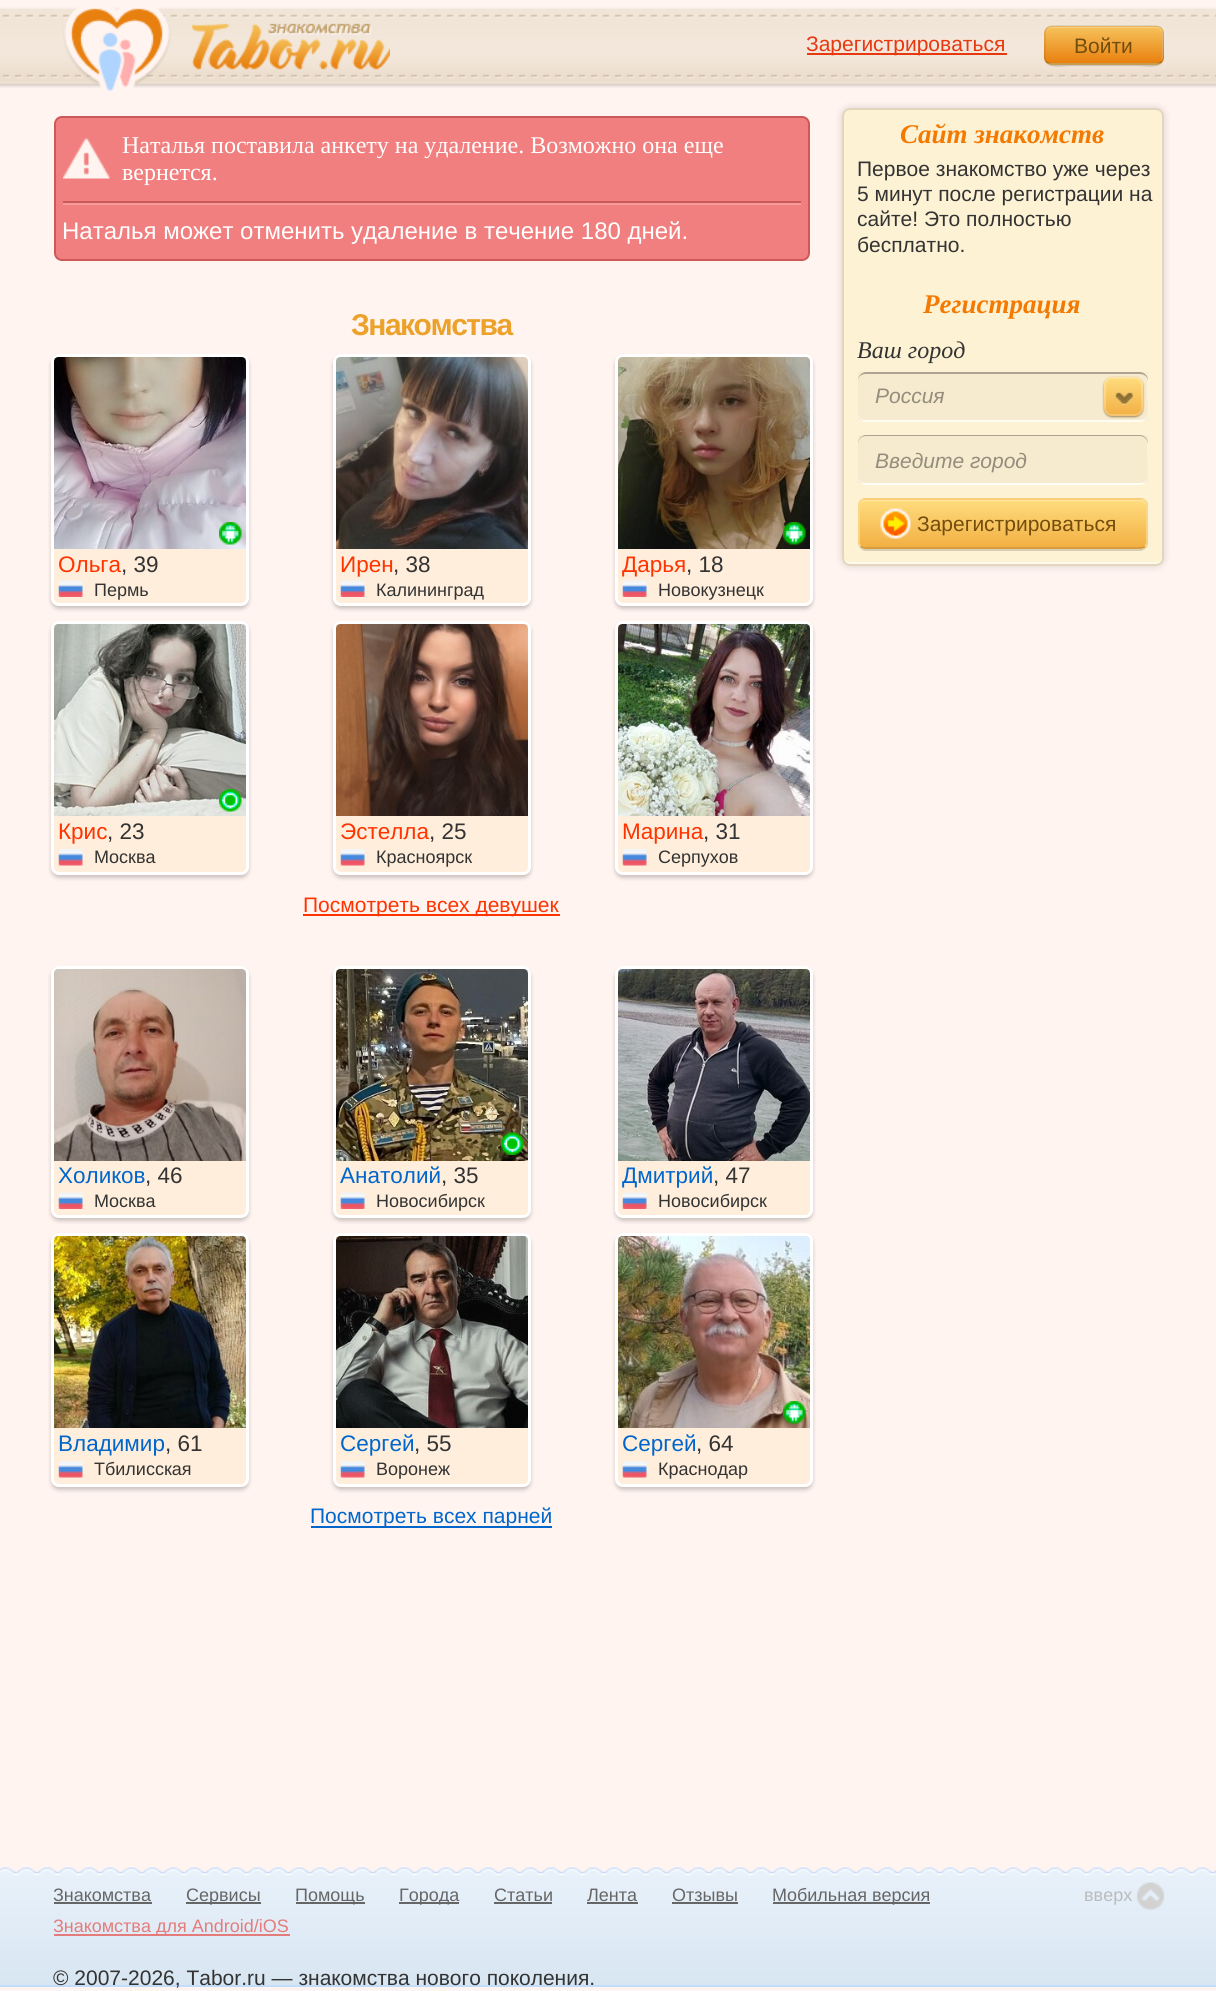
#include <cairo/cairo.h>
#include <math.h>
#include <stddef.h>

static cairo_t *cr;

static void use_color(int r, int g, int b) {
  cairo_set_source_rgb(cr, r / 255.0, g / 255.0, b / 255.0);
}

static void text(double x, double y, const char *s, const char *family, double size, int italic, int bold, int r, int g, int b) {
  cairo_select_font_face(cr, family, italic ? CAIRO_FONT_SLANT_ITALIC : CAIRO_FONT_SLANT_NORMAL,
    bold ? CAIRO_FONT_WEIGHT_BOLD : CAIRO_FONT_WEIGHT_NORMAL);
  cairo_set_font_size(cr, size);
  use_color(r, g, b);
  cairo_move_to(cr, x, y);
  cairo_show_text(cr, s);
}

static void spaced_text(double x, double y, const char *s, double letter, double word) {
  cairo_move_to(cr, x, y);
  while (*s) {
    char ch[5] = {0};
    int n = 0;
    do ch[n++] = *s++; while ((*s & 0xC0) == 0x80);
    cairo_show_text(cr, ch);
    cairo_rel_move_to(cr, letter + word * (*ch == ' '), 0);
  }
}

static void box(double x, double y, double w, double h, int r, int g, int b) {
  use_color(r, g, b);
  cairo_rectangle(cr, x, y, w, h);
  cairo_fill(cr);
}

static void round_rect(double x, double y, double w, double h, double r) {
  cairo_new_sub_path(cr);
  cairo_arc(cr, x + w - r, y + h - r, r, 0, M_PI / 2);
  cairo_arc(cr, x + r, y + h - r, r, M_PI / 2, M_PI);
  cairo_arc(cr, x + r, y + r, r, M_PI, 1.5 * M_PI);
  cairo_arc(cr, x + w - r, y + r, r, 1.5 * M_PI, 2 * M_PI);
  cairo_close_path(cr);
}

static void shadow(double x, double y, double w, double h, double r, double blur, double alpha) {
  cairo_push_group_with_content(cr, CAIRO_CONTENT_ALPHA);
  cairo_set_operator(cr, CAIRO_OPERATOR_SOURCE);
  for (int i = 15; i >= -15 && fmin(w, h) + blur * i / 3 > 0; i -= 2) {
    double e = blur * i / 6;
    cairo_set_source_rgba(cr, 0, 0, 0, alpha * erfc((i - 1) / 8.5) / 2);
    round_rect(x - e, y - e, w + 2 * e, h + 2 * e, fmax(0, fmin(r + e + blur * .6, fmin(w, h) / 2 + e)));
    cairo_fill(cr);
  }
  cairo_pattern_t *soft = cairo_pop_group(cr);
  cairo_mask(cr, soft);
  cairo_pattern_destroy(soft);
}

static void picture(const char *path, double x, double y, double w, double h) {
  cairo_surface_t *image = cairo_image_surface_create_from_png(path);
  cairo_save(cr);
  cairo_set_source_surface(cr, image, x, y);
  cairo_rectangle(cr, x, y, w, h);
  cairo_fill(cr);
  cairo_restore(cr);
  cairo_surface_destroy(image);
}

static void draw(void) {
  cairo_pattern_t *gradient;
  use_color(255, 244, 240);
  cairo_paint(cr);
  picture("img_01.png", 0, 7, 1216, 81);
  picture("img_02.png", 63, 7, 327, 85);
  box(807, 53, 200, 2, 232, 56, 15);
  cairo_set_source_rgba(cr, 0, 0, 0, 0.15);
  cairo_new_path(cr);
  cairo_move_to(cr, 1044, 57);
  cairo_curve_to(cr, 1044, 70, 1061, 66, 1069, 66);
  cairo_line_to(cr, 1139, 66);
  cairo_curve_to(cr, 1147, 66, 1164, 70, 1164, 57);
  cairo_curve_to(cr, 1164, 61, 1161, 64, 1156, 64);
  cairo_line_to(cr, 1052, 64);
  cairo_curve_to(cr, 1047, 64, 1044, 61, 1044, 57);
  cairo_close_path(cr);
  cairo_fill(cr);
  use_color(246, 194, 91);
  round_rect(1044, 26, 120, 39, 8);
  cairo_fill(cr);
  cairo_save(cr);
  round_rect(1044, 26, 120, 39, 8);
  cairo_clip(cr);
  gradient = cairo_pattern_create_linear(1104, 27, 1104, 63);
  cairo_pattern_add_color_stop_rgba(gradient, 0, 0.965, 0.761, 0.357, 1);
  cairo_pattern_add_color_stop_rgba(gradient, 1, 0.91, 0.502, 0.059, 1);
  cairo_set_source(cr, gradient);
  cairo_pattern_destroy(gradient);
  cairo_rectangle(cr, 1044, 27, 120, 36);
  cairo_fill(cr);
  cairo_restore(cr);
  cairo_set_source_rgba(cr, 1, 1, 1, 0.25);
  cairo_new_path(cr);
  cairo_move_to(cr, 1052, 28);
  cairo_line_to(cr, 1156, 28);
  cairo_curve_to(cr, 1160, 28, 1162, 31, 1162, 34);
  cairo_line_to(cr, 1162, 58);
  cairo_line_to(cr, 1161, 61);
  cairo_curve_to(cr, 1162, 60, 1163, 59, 1163, 57);
  cairo_line_to(cr, 1163, 33);
  cairo_curve_to(cr, 1163, 30, 1160, 27, 1157, 27);
  cairo_line_to(cr, 1052, 27);
  cairo_curve_to(cr, 1049, 27, 1046, 30, 1046, 33);
  cairo_line_to(cr, 1046, 34);
  cairo_curve_to(cr, 1046, 31, 1048, 28, 1052, 28);
  cairo_close_path(cr);
  cairo_fill(cr);
  cairo_new_path(cr);
  cairo_move_to(cr, 1161.5, 62);
  cairo_curve_to(cr, 1160, 63, 1158.5, 64, 1156.5, 64);
  cairo_line_to(cr, 1051.5, 64);
  cairo_curve_to(cr, 1049.5, 64, 1048, 63, 1046.5, 62);
  cairo_set_source_rgba(cr, 0, 0, 0, 0.25);
  cairo_set_line_width(cr, 1.5);
  cairo_stroke(cr);
  cairo_new_path(cr);
  cairo_move_to(cr, 1046.5, 62);
  cairo_curve_to(cr, 1043.5, 58.5, 1045, 53, 1045, 49);
  cairo_curve_to(cr, 1045, 23.5, 1042, 26, 1069, 26);
  cairo_line_to(cr, 1139, 26);
  cairo_curve_to(cr, 1166, 26, 1163, 23.5, 1163, 49);
  cairo_curve_to(cr, 1163, 53, 1164.5, 58.5, 1161.5, 62);
  cairo_set_source_rgba(cr, 0, 0, 0, 0.1);
  cairo_stroke(cr);
  use_color(241, 127, 127);
  round_rect(55, 117, 754, 143, 7);
  cairo_fill_preserve(cr);
  use_color(205, 88, 88);
  cairo_set_line_width(cr, 2);
  cairo_stroke(cr);
  picture("img_03.png", 63, 138, 47, 41);
  box(63, 203, 738, 2, 248, 153, 153);
  box(63, 201, 738, 2, 203, 89, 89);
  use_color(0, 0, 0);
  shadow(51, 357, 198, 252, 8, 2, 0.2);
  use_color(255, 238, 219);
  round_rect(52.5, 355.5, 195, 249, 6.5);
  cairo_fill_preserve(cr);
  use_color(255, 255, 255);
  cairo_set_line_width(cr, 3);
  cairo_stroke(cr);
  picture("img_04.png", 54, 357, 192, 192);
  picture("img_05.png", 219, 522, 23, 23);
  picture("img_06.png", 58, 580, 25, 17);
  use_color(0, 0, 0);
  shadow(333, 357, 198, 252, 8, 2, 0.2);
  use_color(255, 238, 219);
  round_rect(334.5, 355.5, 195, 249, 6.5);
  cairo_fill_preserve(cr);
  use_color(255, 255, 255);
  cairo_stroke(cr);
  picture("img_07.png", 336, 357, 192, 192);
  picture("img_06.png", 340, 580, 25, 17);
  use_color(0, 0, 0);
  shadow(615, 357, 198, 252, 8, 2, 0.2);
  use_color(255, 238, 219);
  round_rect(616.5, 355.5, 195, 249, 6.5);
  cairo_fill_preserve(cr);
  use_color(255, 255, 255);
  cairo_stroke(cr);
  picture("img_08.png", 618, 357, 192, 192);
  picture("img_09.png", 783, 522, 23, 23);
  picture("img_10.png", 622, 580, 25, 17);
  use_color(0, 0, 0);
  shadow(51, 624, 198, 254, 8, 2, 0.2);
  use_color(255, 238, 219);
  round_rect(52.5, 622.5, 195, 251, 6.5);
  cairo_fill_preserve(cr);
  use_color(255, 255, 255);
  cairo_stroke(cr);
  picture("img_11.png", 54, 624, 192, 192);
  picture("img_12.png", 219, 789, 23, 23);
  picture("img_13.png", 58, 849, 25, 17);
  use_color(0, 0, 0);
  shadow(333, 624, 198, 254, 8, 2, 0.2);
  use_color(255, 238, 219);
  round_rect(334.5, 622.5, 195, 251, 6.5);
  cairo_fill_preserve(cr);
  use_color(255, 255, 255);
  cairo_stroke(cr);
  picture("img_14.png", 336, 624, 192, 192);
  picture("img_13.png", 340, 849, 25, 17);
  use_color(0, 0, 0);
  shadow(615, 624, 198, 254, 8, 2, 0.2);
  use_color(255, 238, 219);
  round_rect(616.5, 622.5, 195, 251, 6.5);
  cairo_fill_preserve(cr);
  use_color(255, 255, 255);
  cairo_stroke(cr);
  picture("img_15.png", 618, 624, 192, 192);
  picture("img_16.png", 622, 849, 25, 17);
  box(303, 914, 257, 2, 255, 51, 0);
  use_color(0, 0, 0);
  shadow(51, 969, 198, 252, 8, 2, 0.2);
  use_color(255, 238, 219);
  round_rect(52.5, 967.5, 195, 249, 6.5);
  cairo_fill_preserve(cr);
  use_color(255, 255, 255);
  cairo_stroke(cr);
  picture("img_17.png", 54, 969, 192, 192);
  picture("img_06.png", 58, 1192, 25, 17);
  use_color(0, 0, 0);
  shadow(333, 969, 198, 252, 8, 2, 0.2);
  use_color(255, 238, 219);
  round_rect(334.5, 967.5, 195, 249, 6.5);
  cairo_fill_preserve(cr);
  use_color(255, 255, 255);
  cairo_stroke(cr);
  picture("img_18.png", 336, 969, 192, 192);
  picture("img_19.png", 501, 1132, 23, 23);
  picture("img_06.png", 340, 1192, 25, 17);
  use_color(0, 0, 0);
  shadow(615, 969, 198, 252, 8, 2, 0.2);
  use_color(255, 238, 219);
  round_rect(616.5, 967.5, 195, 249, 6.5);
  cairo_fill_preserve(cr);
  use_color(255, 255, 255);
  cairo_stroke(cr);
  picture("img_20.png", 618, 969, 192, 192);
  picture("img_10.png", 622, 1192, 25, 17);
  use_color(0, 0, 0);
  shadow(51, 1236, 198, 254, 8, 2, 0.2);
  use_color(255, 238, 219);
  round_rect(52.5, 1234.5, 195, 251, 6.5);
  cairo_fill_preserve(cr);
  use_color(255, 255, 255);
  cairo_stroke(cr);
  picture("img_21.png", 54, 1236, 192, 192);
  picture("img_13.png", 58, 1461, 25, 17);
  use_color(0, 0, 0);
  shadow(333, 1236, 198, 254, 8, 2, 0.2);
  use_color(255, 238, 219);
  round_rect(334.5, 1234.5, 195, 251, 6.5);
  cairo_fill_preserve(cr);
  use_color(255, 255, 255);
  cairo_stroke(cr);
  picture("img_22.png", 336, 1236, 192, 192);
  picture("img_13.png", 340, 1461, 25, 17);
  use_color(0, 0, 0);
  shadow(615, 1236, 198, 254, 8, 2, 0.2);
  use_color(255, 238, 219);
  round_rect(616.5, 1234.5, 195, 251, 6.5);
  cairo_fill_preserve(cr);
  use_color(255, 255, 255);
  cairo_stroke(cr);
  picture("img_23.png", 618, 1236, 192, 192);
  picture("img_24.png", 783, 1401, 23, 23);
  picture("img_16.png", 622, 1461, 25, 17);
  box(311, 1526, 241, 2, 0, 102, 204);
  use_color(0, 0, 0);
  shadow(842, 108, 322, 458, 8, 4, 0.15);
  use_color(253, 242, 212);
  round_rect(842, 108, 322, 458, 8);
  cairo_fill(cr);
  use_color(254, 249, 234);
  cairo_new_path(cr);
  cairo_move_to(cr, 843, 556);
  cairo_line_to(cr, 843, 558);
  cairo_curve_to(cr, 843, 561, 846, 564, 849, 564);
  cairo_line_to(cr, 1157, 564);
  cairo_curve_to(cr, 1160, 564, 1163, 561, 1163, 558);
  cairo_line_to(cr, 1163, 116);
  cairo_curve_to(cr, 1163, 115, 1163, 113, 1162, 112);
  cairo_line_to(cr, 1162, 556);
  cairo_curve_to(cr, 1162, 560, 1160, 562, 1156, 562);
  cairo_line_to(cr, 849, 562);
  cairo_curve_to(cr, 846, 562, 843, 560, 843, 556);
  cairo_close_path(cr);
  cairo_fill(cr);
  round_rect(843, 109, 320, 456, 7);
  use_color(228, 213, 190);
  cairo_set_line_width(cr, 2);
  cairo_stroke(cr);
  use_color(255, 252, 246);
  cairo_new_path(cr);
  cairo_move_to(cr, 858, 412);
  cairo_line_to(cr, 858, 414);
  cairo_curve_to(cr, 858, 418, 862, 422, 866, 422);
  cairo_line_to(cr, 1140, 422);
  cairo_curve_to(cr, 1144, 422, 1148, 418, 1148, 414);
  cairo_line_to(cr, 1148, 382);
  cairo_line_to(cr, 1147, 379);
  cairo_line_to(cr, 1148, 412);
  cairo_curve_to(cr, 1148, 417, 1144, 420, 1140, 420);
  cairo_line_to(cr, 866, 420);
  cairo_curve_to(cr, 861, 420, 858, 417, 858, 412);
  cairo_close_path(cr);
  cairo_fill(cr);
  cairo_set_source_rgba(cr, 0, 0, 0, 0.03);
  cairo_rectangle(cr, 858, 372, 290, 48);
  cairo_fill(cr);
  use_color(172, 164, 144);
  cairo_new_path(cr);
  cairo_move_to(cr, 866, 374);
  cairo_line_to(cr, 1140, 374);
  cairo_curve_to(cr, 1144, 374, 1148, 377, 1148, 381);
  cairo_line_to(cr, 1148, 380);
  cairo_curve_to(cr, 1148, 376, 1144, 372, 1140, 372);
  cairo_line_to(cr, 866, 372);
  cairo_curve_to(cr, 862, 372, 858, 376, 858, 380);
  cairo_line_to(cr, 858, 381);
  cairo_curve_to(cr, 858, 377, 861, 374, 866, 374);
  cairo_close_path(cr);
  cairo_fill(cr);
  use_color(125, 97, 51);
  shadow(1104, 378, 39, 39, 8, 1, 0.75);
  gradient = cairo_pattern_create_linear(1124, 377, 1124, 416);
  cairo_pattern_add_color_stop_rgba(gradient, 0, 1, 0.863, 0.494, 1);
  cairo_pattern_add_color_stop_rgba(gradient, 1, 0.949, 0.686, 0.259, 1);
  cairo_set_source(cr, gradient);
  cairo_pattern_destroy(gradient);
  round_rect(1104, 377, 39, 39, 8);
  cairo_fill(cr);
  round_rect(1105, 378, 37, 37, 7);
  cairo_set_source_rgba(cr, 1, 1, 1, 0.25);
  cairo_stroke(cr);
  picture("img_25.png", 1115, 392, 18, 13);
  use_color(255, 252, 246);
  cairo_new_path(cr);
  cairo_move_to(cr, 858, 476);
  cairo_line_to(cr, 858, 477);
  cairo_curve_to(cr, 858, 481, 862, 485, 866, 485);
  cairo_line_to(cr, 1140, 485);
  cairo_curve_to(cr, 1144, 485, 1148, 481, 1148, 477);
  cairo_line_to(cr, 1148, 445);
  cairo_line_to(cr, 1147, 442);
  cairo_line_to(cr, 1148, 476);
  cairo_curve_to(cr, 1148, 480, 1144, 483, 1140, 483);
  cairo_line_to(cr, 866, 483);
  cairo_curve_to(cr, 861, 483, 858, 480, 858, 476);
  cairo_close_path(cr);
  cairo_fill(cr);
  cairo_set_source_rgba(cr, 0, 0, 0, 0.03);
  cairo_rectangle(cr, 858, 435, 290, 48);
  cairo_fill(cr);
  use_color(172, 164, 144);
  cairo_new_path(cr);
  cairo_move_to(cr, 866, 436);
  cairo_line_to(cr, 1140, 436);
  cairo_curve_to(cr, 1144, 436, 1148, 440, 1148, 444);
  cairo_line_to(cr, 1148, 443);
  cairo_curve_to(cr, 1148, 439, 1144, 435, 1140, 435);
  cairo_line_to(cr, 866, 435);
  cairo_curve_to(cr, 862, 435, 858, 439, 858, 443);
  cairo_line_to(cr, 858, 444);
  cairo_curve_to(cr, 858, 440, 861, 436, 866, 436);
  cairo_close_path(cr);
  cairo_fill(cr);
  use_color(215, 206, 180);
  cairo_new_path(cr);
  cairo_move_to(cr, 858, 542);
  cairo_line_to(cr, 858, 543);
  cairo_curve_to(cr, 858, 547, 862, 551, 866, 551);
  cairo_line_to(cr, 1140, 551);
  cairo_curve_to(cr, 1144, 551, 1148, 547, 1148, 543);
  cairo_line_to(cr, 1148, 508);
  cairo_line_to(cr, 1147, 505);
  cairo_line_to(cr, 1148, 542);
  cairo_curve_to(cr, 1148, 546, 1144, 549, 1140, 549);
  cairo_line_to(cr, 866, 549);
  cairo_curve_to(cr, 861, 549, 858, 546, 858, 542);
  cairo_close_path(cr);
  cairo_fill(cr);
  use_color(242, 175, 66);
  round_rect(858, 498, 290, 51, 8);
  cairo_fill(cr);
  cairo_save(cr);
  round_rect(858, 498, 290, 51, 8);
  cairo_clip(cr);
  gradient = cairo_pattern_create_linear(1003, 500, 1003, 548);
  cairo_pattern_add_color_stop_rgba(gradient, 0, 1, 0.863, 0.494, 1);
  cairo_pattern_add_color_stop_rgba(gradient, 1, 0.949, 0.686, 0.259, 1);
  cairo_set_source(cr, gradient);
  cairo_pattern_destroy(gradient);
  cairo_rectangle(cr, 858, 500, 290, 48);
  cairo_fill(cr);
  cairo_restore(cr);
  use_color(255, 229, 157);
  cairo_new_path(cr);
  cairo_move_to(cr, 866, 501);
  cairo_line_to(cr, 1140, 501);
  cairo_curve_to(cr, 1143, 501, 1146, 504, 1146, 507);
  cairo_line_to(cr, 1146, 506);
  cairo_curve_to(cr, 1146, 503, 1143, 500, 1140, 500);
  cairo_line_to(cr, 866, 500);
  cairo_curve_to(cr, 863, 500, 860, 503, 860, 506);
  cairo_line_to(cr, 860, 507);
  cairo_curve_to(cr, 860, 504, 862, 501, 866, 501);
  cairo_close_path(cr);
  cairo_fill(cr);
  cairo_new_path(cr);
  cairo_move_to(cr, 1145, 546.5);
  cairo_curve_to(cr, 1143.5, 547.5, 1142, 548, 1140, 548);
  cairo_line_to(cr, 865.5, 548);
  cairo_curve_to(cr, 863.5, 548, 862, 547.5, 860.5, 546.5);
  cairo_set_source_rgba(cr, 0, 0, 0, 0.15);
  cairo_set_line_width(cr, 1.5);
  cairo_stroke(cr);
  cairo_new_path(cr);
  cairo_move_to(cr, 860.5, 546.5);
  cairo_curve_to(cr, 859.5, 545, 859, 543.5, 859, 541.5);
  cairo_line_to(cr, 859, 505.5);
  cairo_curve_to(cr, 859, 503.5, 859.5, 502, 860.5, 500.5);
  cairo_curve_to(cr, 862, 499.5, 863.5, 499, 865.5, 499);
  cairo_line_to(cr, 1140, 499);
  cairo_curve_to(cr, 1142, 499, 1143.5, 499.5, 1145, 500.5);
  cairo_curve_to(cr, 1146, 502, 1147, 503.5, 1147, 505.5);
  cairo_line_to(cr, 1147, 541.5);
  cairo_curve_to(cr, 1147, 543.5, 1146, 545, 1145, 546.5);
  use_color(251, 217, 143);
  cairo_stroke(cr);
  picture("img_26.png", 880, 508, 31, 31);
  gradient = cairo_pattern_create_linear(608, 1872, 608, 1985);
  cairo_pattern_add_color_stop_rgba(gradient, 0, 0.91, 0.945, 0.98, 1);
  cairo_pattern_add_color_stop_rgba(gradient, 1, 0.847, 0.902, 0.949, 1);
  cairo_set_source(cr, gradient);
  cairo_pattern_destroy(gradient);
  cairo_rectangle(cr, 0, 1875, 1216, 110);
  cairo_fill(cr);
  box(0, 1985, 1216, 2, 194, 220, 251);
  picture("img_27.png", 0, 1867, 1216, 8);
  box(54, 1902, 98, 2, 102, 102, 102);
  box(186, 1902, 75, 2, 102, 102, 102);
  box(296, 1902, 69, 2, 102, 102, 102);
  box(399, 1902, 60, 2, 102, 102, 102);
  box(494, 1902, 58, 2, 102, 102, 102);
  box(587, 1902, 51, 2, 102, 102, 102);
  box(672, 1902, 66, 2, 102, 102, 102);
  box(773, 1902, 157, 2, 102, 102, 102);
  box(54, 1934, 236, 2, 229, 124, 123);
  picture("img_28.png", 1137, 1882, 27, 28);
  text(806, 51, "Зарегистрироваться", "Liberation Sans", 21, 0, 0, 232, 56, 15);
  text(1074, 53, "Войти", "Liberation Sans", 21, 0, 0, 115, 77, 12);
  text(122, 153, "Наталья поставила анкету на удаление. Возможно она еще", "Liberation Serif", 24, 0, 0, 255, 255, 255);
  text(122, 180, "вернется.", "Liberation Serif", 24, 0, 0, 255, 255, 255);
  text(62, 239, "Наталья может отменить удаление в течение 180 дней.", "Liberation Sans", 24, 0, 0, 255, 255, 255);
  cairo_select_font_face(cr, "Liberation Sans", CAIRO_FONT_SLANT_NORMAL, CAIRO_FONT_WEIGHT_BOLD);
  cairo_set_font_size(cr, 30);
  use_color(236, 162, 42);
  spaced_text(351, 335, "Знакомства", -1.5, 0);
  text(58, 572, "Ольга", "Liberation Sans", 22.5, 0, 0, 255, 51, 0);
  text(121, 572, ", 39", "Liberation Sans", 22.5, 0, 0, 51, 51, 51);
  text(94, 596, "Пермь", "Liberation Sans", 18, 0, 0, 51, 51, 51);
  text(340, 572, "Ирен", "Liberation Sans", 22.5, 0, 0, 255, 51, 0);
  text(393, 572, ", 38", "Liberation Sans", 22.5, 0, 0, 51, 51, 51);
  text(376, 596, "Калининград", "Liberation Sans", 18, 0, 0, 51, 51, 51);
  text(622, 572, "Дарья", "Liberation Sans", 22.5, 0, 0, 255, 51, 0);
  text(686, 572, ", 18", "Liberation Sans", 22.5, 0, 0, 51, 51, 51);
  text(658, 596, "Новокузнецк", "Liberation Sans", 18, 0, 0, 51, 51, 51);
  text(58, 839, "Крис", "Liberation Sans", 22.5, 0, 0, 255, 51, 0);
  text(107, 839, ", 23", "Liberation Sans", 22.5, 0, 0, 51, 51, 51);
  text(94, 863, "Москва", "Liberation Sans", 18, 0, 0, 51, 51, 51);
  text(340, 839, "Эстелла", "Liberation Sans", 22.5, 0, 0, 255, 51, 0);
  text(429, 839, ", 25", "Liberation Sans", 22.5, 0, 0, 51, 51, 51);
  text(376, 863, "Красноярск", "Liberation Sans", 18, 0, 0, 51, 51, 51);
  text(622, 839, "Марина", "Liberation Sans", 22.5, 0, 0, 255, 51, 0);
  text(703, 839, ", 31", "Liberation Sans", 22.5, 0, 0, 51, 51, 51);
  text(658, 863, "Серпухов", "Liberation Sans", 18, 0, 0, 51, 51, 51);
  text(303, 912, "Посмотреть всех девушек", "Liberation Sans", 21, 0, 0, 255, 51, 0);
  text(58, 1183, "Холиков", "Liberation Sans", 22.5, 0, 0, 0, 102, 204);
  text(145, 1183, ", 46", "Liberation Sans", 22.5, 0, 0, 51, 51, 51);
  text(94, 1207, "Москва", "Liberation Sans", 18, 0, 0, 51, 51, 51);
  text(340, 1183, "Анатолий", "Liberation Sans", 22.5, 0, 0, 0, 102, 204);
  text(441, 1183, ", 35", "Liberation Sans", 22.5, 0, 0, 51, 51, 51);
  text(376, 1207, "Новосибирск", "Liberation Sans", 18, 0, 0, 51, 51, 51);
  text(622, 1183, "Дмитрий", "Liberation Sans", 22.5, 0, 0, 0, 102, 204);
  text(713, 1183, ", 47", "Liberation Sans", 22.5, 0, 0, 51, 51, 51);
  text(658, 1207, "Новосибирск", "Liberation Sans", 18, 0, 0, 51, 51, 51);
  text(58, 1451, "Владимир", "Liberation Sans", 22.5, 0, 0, 0, 102, 204);
  text(165, 1451, ", 61", "Liberation Sans", 22.5, 0, 0, 51, 51, 51);
  text(94, 1475, "Тбилисская", "Liberation Sans", 18, 0, 0, 51, 51, 51);
  text(340, 1451, "Сергей", "Liberation Sans", 22.5, 0, 0, 0, 102, 204);
  text(414, 1451, ", 55", "Liberation Sans", 22.5, 0, 0, 51, 51, 51);
  text(376, 1475, "Воронеж", "Liberation Sans", 18, 0, 0, 51, 51, 51);
  text(622, 1451, "Сергей", "Liberation Sans", 22.5, 0, 0, 0, 102, 204);
  text(696, 1451, ", 64", "Liberation Sans", 22.5, 0, 0, 51, 51, 51);
  text(658, 1475, "Краснодар", "Liberation Sans", 18, 0, 0, 51, 51, 51);
  text(310, 1523, "Посмотреть всех парней", "Liberation Sans", 21, 0, 0, 0, 102, 204);
  text(900, 143, "Сайт знакомств", "Liberation Serif", 27, 1, 1, 244, 121, 0);
  text(857, 176, "Первое знакомство уже через", "Liberation Sans", 21, 0, 0, 51, 51, 51);
  text(857, 201, "5 минут после регистрации на", "Liberation Sans", 21, 0, 0, 51, 51, 51);
  text(857, 226, "сайте! Это полностью", "Liberation Sans", 21, 0, 0, 51, 51, 51);
  text(857, 252, "бесплатно.", "Liberation Sans", 21, 0, 0, 51, 51, 51);
  text(923, 313, "Регистрация", "Liberation Serif", 27, 1, 1, 244, 121, 0);
  text(857, 358, "Ваш город", "Liberation Serif", 24, 1, 0, 51, 51, 51);
  text(875, 403, "Россия", "Liberation Sans", 21, 1, 0, 148, 141, 126);
  text(875, 468, "Введите город", "Liberation Sans", 21, 1, 0, 148, 141, 126);
  text(917, 531, "Зарегистрироваться", "Liberation Sans", 21, 0, 0, 115, 77, 12);
  text(53, 1901, "Знакомства", "Liberation Sans", 18, 0, 0, 102, 102, 102);
  text(186, 1901, "Сервисы", "Liberation Sans", 18, 0, 0, 102, 102, 102);
  text(295, 1901, "Помощь", "Liberation Sans", 18, 0, 0, 102, 102, 102);
  text(399, 1901, "Города", "Liberation Sans", 18, 0, 0, 102, 102, 102);
  text(494, 1901, "Статьи", "Liberation Sans", 18, 0, 0, 102, 102, 102);
  text(587, 1901, "Лента", "Liberation Sans", 18, 0, 0, 102, 102, 102);
  text(672, 1901, "Отзывы", "Liberation Sans", 18, 0, 0, 102, 102, 102);
  text(772, 1901, "Мобильная версия", "Liberation Sans", 18, 0, 0, 102, 102, 102);
  text(53, 1932, "Знакомства для Android/iOS", "Liberation Sans", 18, 0, 0, 229, 124, 123);
  text(1084, 1901, "вверх", "Liberation Sans", 18, 0, 0, 187, 187, 187);
  text(53, 1985, "© 2007-2026, Tabor.ru — знакомства нового поколения.", "Liberation Sans", 21, 0, 0, 51, 51, 51);
}

int main(void) {
  cairo_surface_t *surface = cairo_image_surface_create(CAIRO_FORMAT_RGB24, 1216, 1991);
  cr = cairo_create(surface);
  cairo_font_options_t *options = cairo_font_options_create();
  cairo_font_options_set_hint_metrics(options, CAIRO_HINT_METRICS_OFF);
  cairo_font_options_set_hint_style(options, CAIRO_HINT_STYLE_NONE);
  cairo_set_font_options(cr, options);
  cairo_set_miter_limit(cr, 4);
  draw();
  cairo_surface_write_to_png(surface, "out.png");
  cairo_font_options_destroy(options);
  cairo_destroy(cr);
  cairo_surface_destroy(surface);
  return 0;
}
